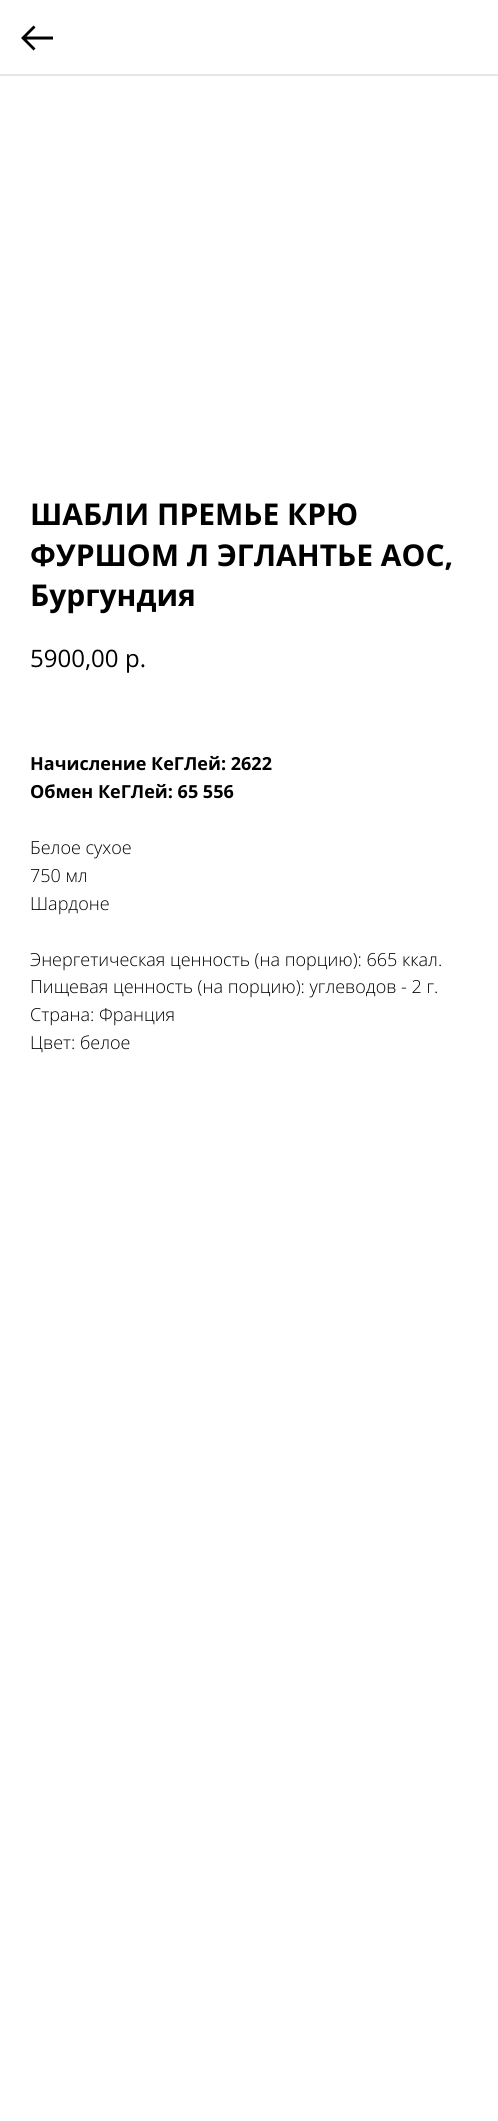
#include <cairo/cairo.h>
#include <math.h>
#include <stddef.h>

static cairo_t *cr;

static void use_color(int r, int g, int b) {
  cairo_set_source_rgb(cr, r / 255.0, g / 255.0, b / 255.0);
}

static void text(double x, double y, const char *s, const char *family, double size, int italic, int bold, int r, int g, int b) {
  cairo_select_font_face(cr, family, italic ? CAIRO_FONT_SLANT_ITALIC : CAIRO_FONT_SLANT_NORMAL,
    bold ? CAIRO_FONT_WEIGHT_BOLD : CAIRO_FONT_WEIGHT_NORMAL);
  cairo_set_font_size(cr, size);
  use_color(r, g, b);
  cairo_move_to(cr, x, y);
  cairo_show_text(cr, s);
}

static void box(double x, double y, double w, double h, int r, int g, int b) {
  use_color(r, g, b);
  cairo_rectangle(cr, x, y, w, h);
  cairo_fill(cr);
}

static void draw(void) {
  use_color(255, 255, 255);
  cairo_paint(cr);
  box(0, 74, 498, 2, 230, 230, 230);
  use_color(0, 0, 0);
  cairo_new_path(cr);
  cairo_move_to(cr, 33.5, 25.5);
  cairo_line_to(cr, 35.5, 27.5);
  cairo_line_to(cr, 26.5, 36.5);
  cairo_line_to(cr, 53, 36.5);
  cairo_line_to(cr, 53, 39.5);
  cairo_line_to(cr, 26.5, 39.5);
  cairo_line_to(cr, 35.5, 48.5);
  cairo_line_to(cr, 33.5, 50.5);
  cairo_line_to(cr, 21, 38);
  cairo_close_path(cr);
  cairo_fill(cr);
  text(30, 525, "ШАБЛИ ПРЕМЬЕ КРЮ", "Open Sans", 30, 0, 1, 0, 0, 0);
  text(30, 566, "ФУРШОМ Л ЭГЛАНТЬЕ АОС,", "Open Sans", 30, 0, 1, 0, 0, 0);
  text(30, 606, "Бургундия", "Open Sans", 30, 0, 1, 0, 0, 0);
  text(30, 667, "5900,00", "Open Sans", 24, 0, 0, 0, 0, 0);
  text(125, 667, "р.", "Open Sans", 24, 0, 0, 0, 0, 0);
  text(30, 770, "Начисление КеГЛей: 2622", "Open Sans", 18, 0, 1, 0, 0, 0);
  text(30, 798, "Обмен КеГЛей: 65 556", "Open Sans", 18, 0, 1, 0, 0, 0);
  text(30, 854, "Белое сухое", "Open Sans Light", 18, 0, 0, 0, 0, 0);
  text(30, 882, "750 мл", "Open Sans Light", 18, 0, 0, 0, 0, 0);
  text(30, 910, "Шардоне", "Open Sans Light", 18, 0, 0, 0, 0, 0);
  text(30, 966, "Энергетическая ценность (на порцию): 665 ккал.", "Open Sans Light", 18, 0, 0, 0, 0, 0);
  text(30, 993, "Пищевая ценность (на порцию): углеводов - 2 г.", "Open Sans Light", 18, 0, 0, 0, 0, 0);
  text(30, 1021, "Страна: Франция", "Open Sans Light", 18, 0, 0, 0, 0, 0);
  text(30, 1049, "Цвет: белое", "Open Sans Light", 18, 0, 0, 0, 0, 0);
}

int main(void) {
  cairo_surface_t *surface = cairo_image_surface_create(CAIRO_FORMAT_RGB24, 498, 2121);
  cr = cairo_create(surface);
  cairo_font_options_t *options = cairo_font_options_create();
  cairo_font_options_set_hint_metrics(options, CAIRO_HINT_METRICS_OFF);
  cairo_font_options_set_hint_style(options, CAIRO_HINT_STYLE_NONE);
  cairo_set_font_options(cr, options);
  cairo_set_miter_limit(cr, 4);
  draw();
  cairo_surface_write_to_png(surface, "out.png");
  cairo_font_options_destroy(options);
  cairo_destroy(cr);
  cairo_surface_destroy(surface);
  return 0;
}
